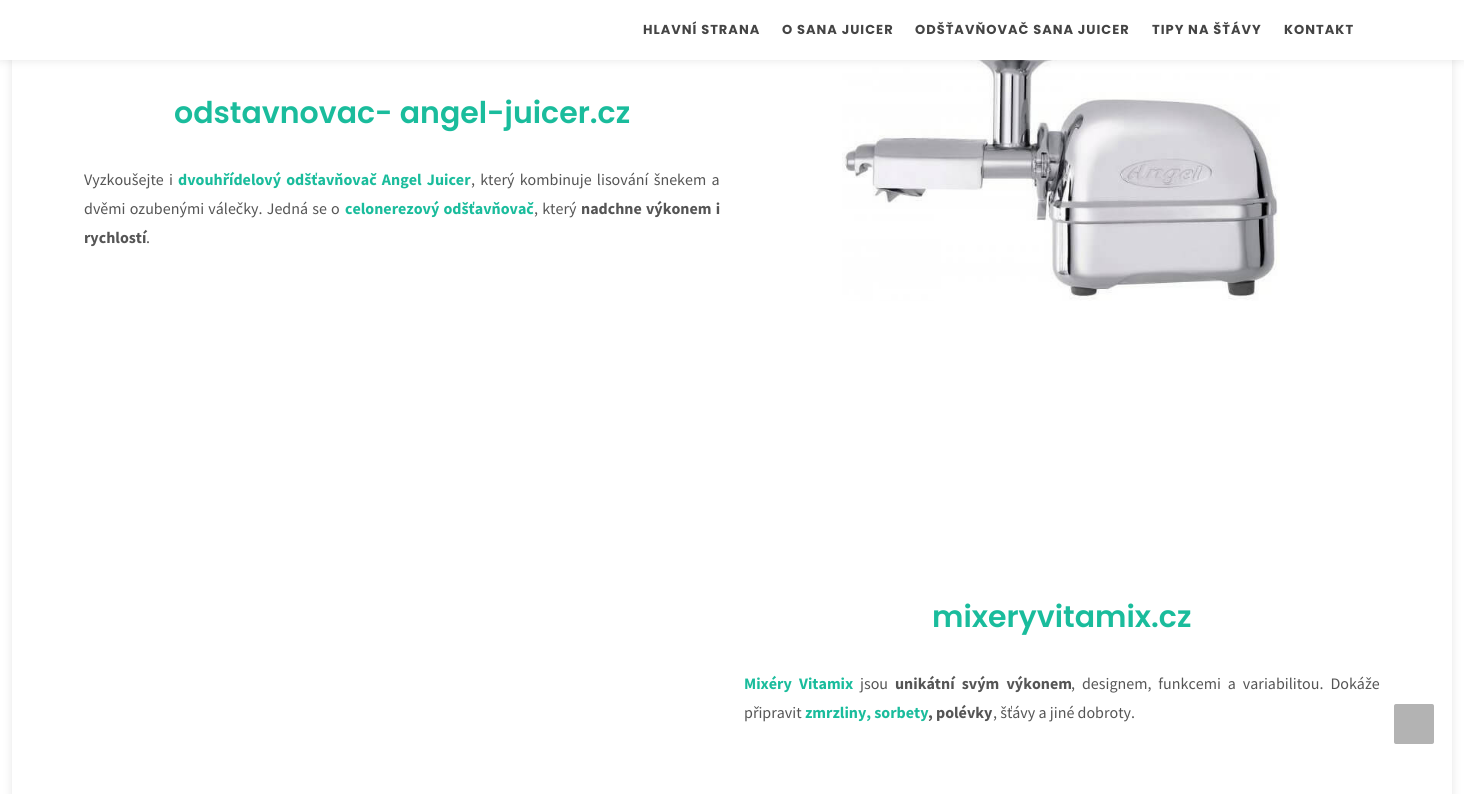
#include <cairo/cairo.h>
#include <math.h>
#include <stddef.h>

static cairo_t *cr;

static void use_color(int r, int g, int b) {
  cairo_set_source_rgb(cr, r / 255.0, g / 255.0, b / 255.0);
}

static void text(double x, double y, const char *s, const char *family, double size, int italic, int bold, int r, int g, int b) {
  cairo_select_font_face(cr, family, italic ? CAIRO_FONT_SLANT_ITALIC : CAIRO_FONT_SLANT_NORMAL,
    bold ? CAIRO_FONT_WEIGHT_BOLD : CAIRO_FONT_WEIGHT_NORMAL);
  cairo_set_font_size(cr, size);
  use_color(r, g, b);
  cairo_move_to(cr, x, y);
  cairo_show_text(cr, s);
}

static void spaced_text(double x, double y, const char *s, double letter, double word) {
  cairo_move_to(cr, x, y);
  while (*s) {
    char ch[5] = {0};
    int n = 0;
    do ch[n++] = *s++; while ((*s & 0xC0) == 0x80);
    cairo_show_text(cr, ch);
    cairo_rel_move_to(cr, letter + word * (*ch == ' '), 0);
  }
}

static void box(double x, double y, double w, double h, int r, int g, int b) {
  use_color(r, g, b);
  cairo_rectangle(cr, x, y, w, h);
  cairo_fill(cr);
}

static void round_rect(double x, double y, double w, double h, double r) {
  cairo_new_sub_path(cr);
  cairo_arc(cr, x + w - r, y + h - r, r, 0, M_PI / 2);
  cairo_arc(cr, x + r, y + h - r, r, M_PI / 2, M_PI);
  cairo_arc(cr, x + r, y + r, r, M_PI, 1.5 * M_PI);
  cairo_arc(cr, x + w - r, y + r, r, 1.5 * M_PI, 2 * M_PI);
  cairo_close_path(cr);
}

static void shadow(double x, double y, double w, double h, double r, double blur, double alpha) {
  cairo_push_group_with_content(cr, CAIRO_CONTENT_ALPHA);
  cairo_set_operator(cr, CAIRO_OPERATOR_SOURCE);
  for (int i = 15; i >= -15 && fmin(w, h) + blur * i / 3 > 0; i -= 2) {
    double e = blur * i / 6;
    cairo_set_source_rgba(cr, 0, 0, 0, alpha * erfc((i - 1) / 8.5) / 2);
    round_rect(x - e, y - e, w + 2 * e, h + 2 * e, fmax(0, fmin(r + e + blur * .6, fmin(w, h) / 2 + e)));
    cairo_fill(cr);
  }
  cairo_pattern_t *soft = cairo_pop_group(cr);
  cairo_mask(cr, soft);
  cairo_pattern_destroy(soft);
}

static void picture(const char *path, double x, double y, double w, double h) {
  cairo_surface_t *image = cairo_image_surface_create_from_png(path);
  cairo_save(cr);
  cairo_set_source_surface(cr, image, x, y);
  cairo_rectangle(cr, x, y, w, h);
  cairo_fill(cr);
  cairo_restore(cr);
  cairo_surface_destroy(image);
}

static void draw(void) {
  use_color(255, 255, 255);
  cairo_paint(cr);
  cairo_save(cr);
  cairo_set_fill_rule(cr, CAIRO_FILL_RULE_EVEN_ODD);
  cairo_new_path(cr);
  cairo_move_to(cr, 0, 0);
  cairo_line_to(cr, 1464, 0);
  cairo_line_to(cr, 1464, 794);
  cairo_line_to(cr, 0, 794);
  cairo_close_path(cr);
  cairo_move_to(cr, 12, -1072);
  cairo_line_to(cr, 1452, -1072);
  cairo_line_to(cr, 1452, 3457);
  cairo_line_to(cr, 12, 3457);
  cairo_close_path(cr);
  cairo_clip(cr);
  use_color(0, 0, 0);
  shadow(12, -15, 1440, 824, 0, 5, 0.1);
  cairo_restore(cr);
  picture("img_01.png", 842, 60, 438, 241);
  use_color(0, 0, 0);
  shadow(0, 0, 1464, 60, 0, 5, 0.1);
  box(0, 0, 1464, 60, 255, 255, 255);
  use_color(179, 179, 179);
  round_rect(1394, 704, 40, 40, 2);
  cairo_fill(cr);
  cairo_select_font_face(cr, "Poppins", CAIRO_FONT_SLANT_NORMAL, CAIRO_FONT_WEIGHT_BOLD);
  cairo_set_font_size(cr, 13);
  use_color(68, 68, 68);
  spaced_text(643, 34, "HLAVNÍ STRANA", 1, 0);
  spaced_text(782, 34, "O SANA JUICER", 1, 0);
  spaced_text(915, 34, "ODŠŤAVŇOVAČ SANA JUICER", 1, 0);
  spaced_text(1152, 34, "TIPY NA ŠŤÁVY", 1, 0);
  spaced_text(1284, 34, "KONTAKT", 1, 0);
  text(174, 123, "odstavnovac- angel-juicer.cz", "Poppins SemiBold", 30, 0, 0, 26, 188, 156);
  cairo_select_font_face(cr, "Source Sans Pro", CAIRO_FONT_SLANT_NORMAL, CAIRO_FONT_WEIGHT_NORMAL);
  cairo_set_font_size(cr, 16);
  use_color(85, 85, 85);
  spaced_text(84, 185, "Vyzkoušejte i", 0, 2);
  cairo_select_font_face(cr, "Source Sans Pro", CAIRO_FONT_SLANT_NORMAL, CAIRO_FONT_WEIGHT_BOLD);
  use_color(26, 188, 156);
  spaced_text(178, 185, "dvouhřídelový odšťavňovač Angel Juicer", 0, 2);
  cairo_select_font_face(cr, "Source Sans Pro", CAIRO_FONT_SLANT_NORMAL, CAIRO_FONT_WEIGHT_NORMAL);
  use_color(85, 85, 85);
  spaced_text(471, 185, ", který kombinuje lisování šnekem a", 0, 2);
  spaced_text(84, 214, "dvěmi ozubenými válečky. Jedná se o", 0, 1);
  cairo_select_font_face(cr, "Source Sans Pro", CAIRO_FONT_SLANT_NORMAL, CAIRO_FONT_WEIGHT_BOLD);
  use_color(26, 188, 156);
  spaced_text(345, 214, "celonerezový odšťavňovač", 0, 1);
  cairo_select_font_face(cr, "Source Sans Pro", CAIRO_FONT_SLANT_NORMAL, CAIRO_FONT_WEIGHT_NORMAL);
  use_color(85, 85, 85);
  spaced_text(534, 214, ", který", 0, 1);
  cairo_select_font_face(cr, "Source Sans Pro", CAIRO_FONT_SLANT_NORMAL, CAIRO_FONT_WEIGHT_BOLD);
  spaced_text(581, 214, "nadchne výkonem i", 0, 1);
  text(84, 243, "rychlostí", "Source Sans Pro", 16, 0, 1, 85, 85, 85);
  text(146, 243, ".", "Source Sans Pro", 16, 0, 0, 85, 85, 85);
  text(932, 627, "mixeryvitamix.cz", "Poppins SemiBold", 30, 0, 0, 26, 188, 156);
  cairo_select_font_face(cr, "Source Sans Pro", CAIRO_FONT_SLANT_NORMAL, CAIRO_FONT_WEIGHT_BOLD);
  cairo_set_font_size(cr, 16);
  spaced_text(744, 689, "Mixéry Vitamix", 0, 4);
  text(860, 689, "jsou", "Source Sans Pro", 16, 0, 0, 85, 85, 85);
  cairo_select_font_face(cr, "Source Sans Pro", CAIRO_FONT_SLANT_NORMAL, CAIRO_FONT_WEIGHT_BOLD);
  spaced_text(895, 689, "unikátní svým výkonem", 0, 4);
  cairo_select_font_face(cr, "Source Sans Pro", CAIRO_FONT_SLANT_NORMAL, CAIRO_FONT_WEIGHT_NORMAL);
  spaced_text(1071, 689, ", designem, funkcemi a variabilitou. Dokáže", 0, 3.75);
  text(744, 718, "připravit", "Source Sans Pro", 16, 0, 0, 85, 85, 85);
  text(805, 718, "zmrzliny, sorbety", "Source Sans Pro", 16, 0, 1, 26, 188, 156);
  text(928, 718, ", polévky", "Source Sans Pro", 16, 0, 1, 85, 85, 85);
  text(993, 718, ", šťávy a jiné dobroty.", "Source Sans Pro", 16, 0, 0, 85, 85, 85);
}

int main(void) {
  cairo_surface_t *surface = cairo_image_surface_create(CAIRO_FORMAT_RGB24, 1464, 794);
  cr = cairo_create(surface);
  cairo_font_options_t *options = cairo_font_options_create();
  cairo_font_options_set_hint_metrics(options, CAIRO_HINT_METRICS_OFF);
  cairo_font_options_set_hint_style(options, CAIRO_HINT_STYLE_NONE);
  cairo_set_font_options(cr, options);
  cairo_set_miter_limit(cr, 4);
  draw();
  cairo_surface_write_to_png(surface, "out.png");
  cairo_font_options_destroy(options);
  cairo_destroy(cr);
  cairo_surface_destroy(surface);
  return 0;
}
